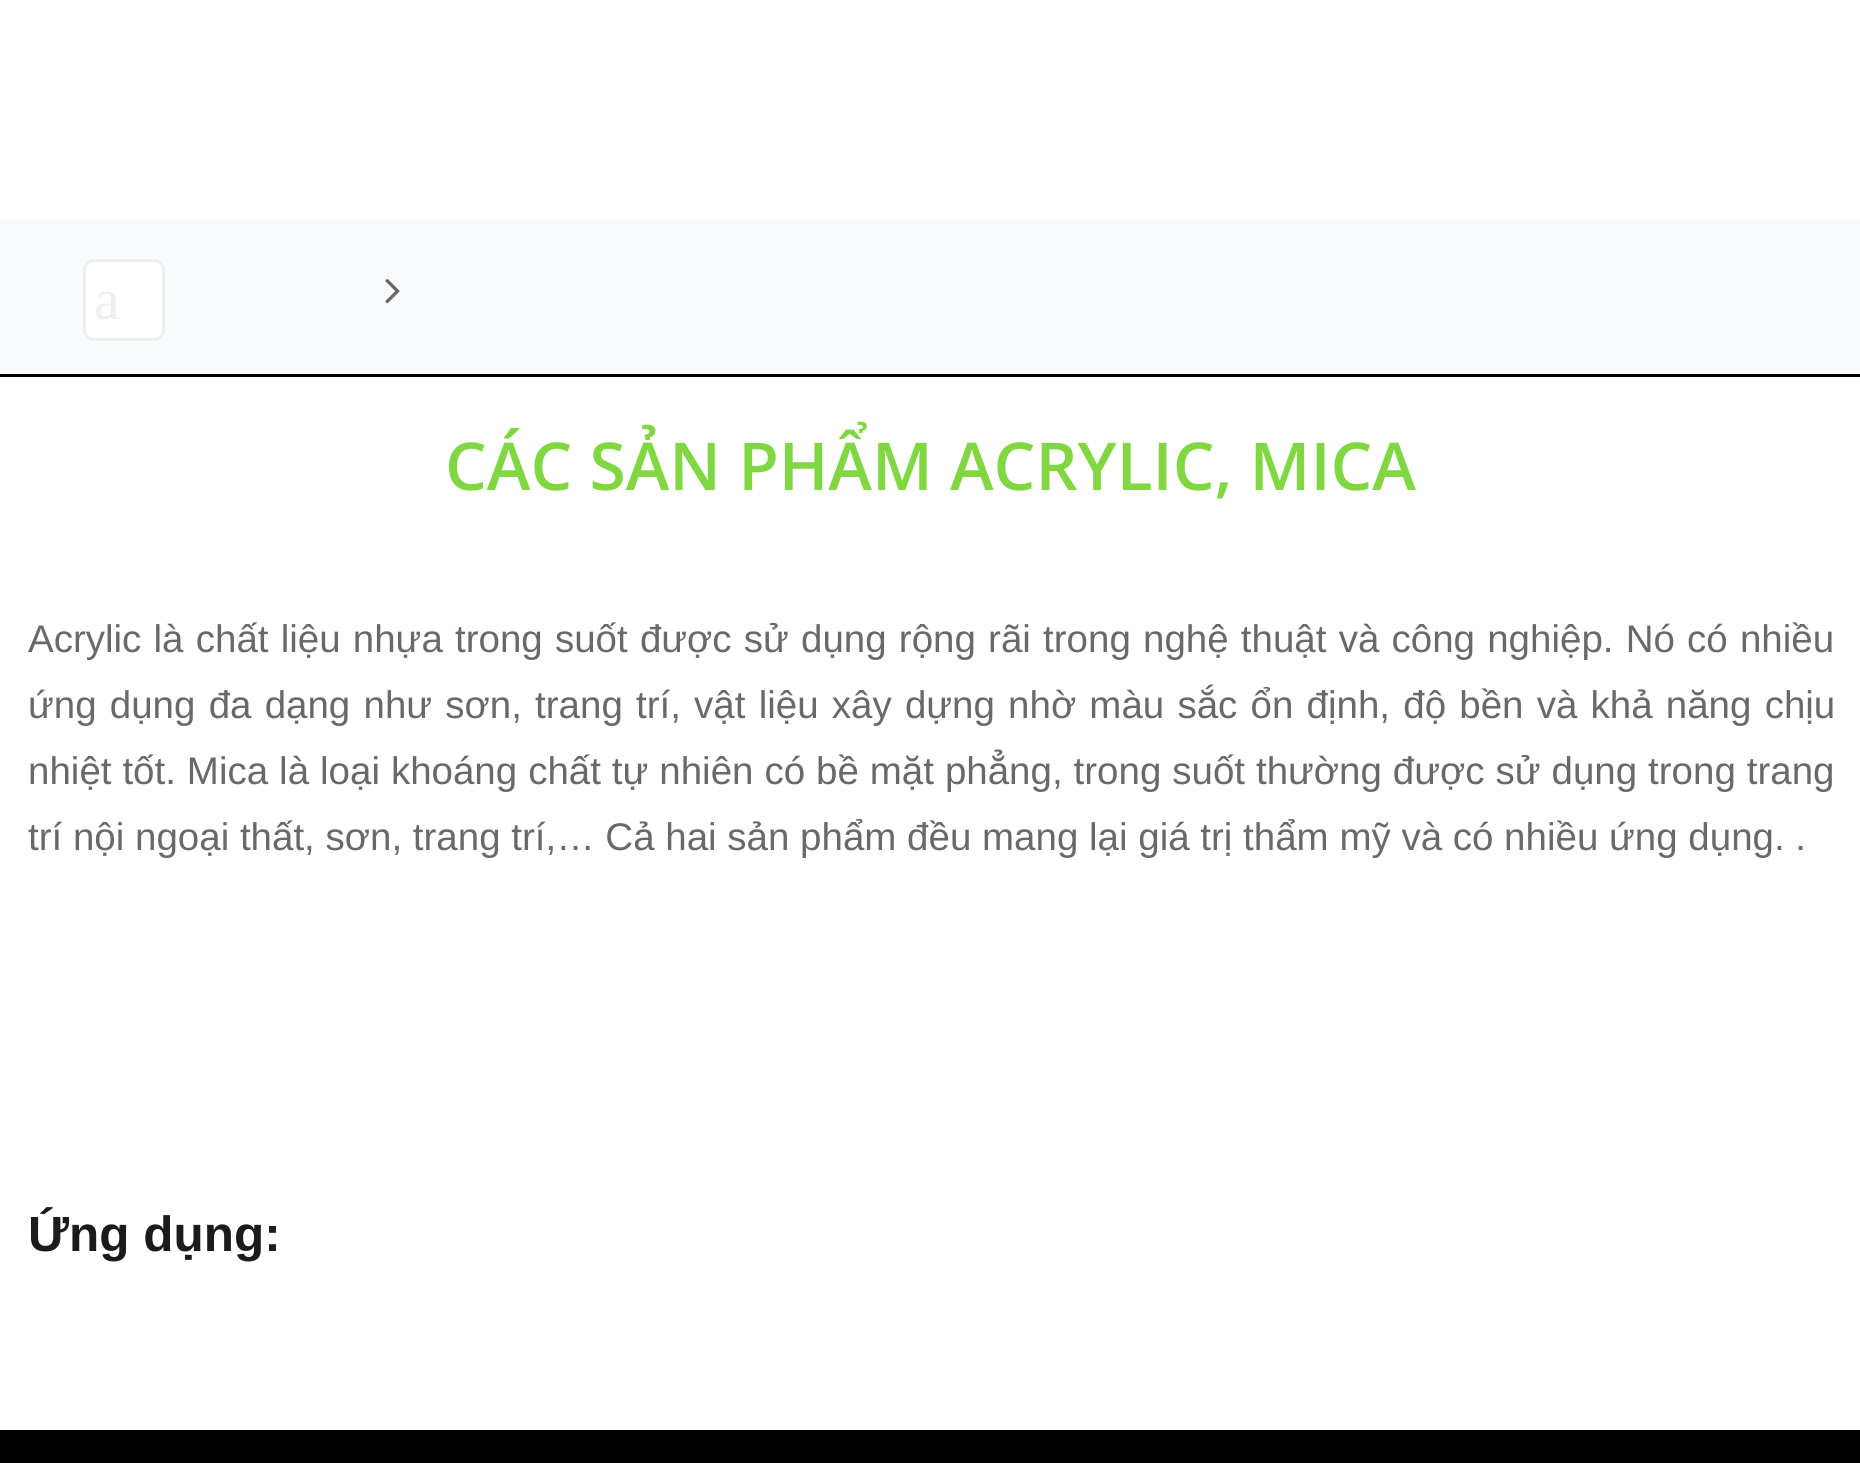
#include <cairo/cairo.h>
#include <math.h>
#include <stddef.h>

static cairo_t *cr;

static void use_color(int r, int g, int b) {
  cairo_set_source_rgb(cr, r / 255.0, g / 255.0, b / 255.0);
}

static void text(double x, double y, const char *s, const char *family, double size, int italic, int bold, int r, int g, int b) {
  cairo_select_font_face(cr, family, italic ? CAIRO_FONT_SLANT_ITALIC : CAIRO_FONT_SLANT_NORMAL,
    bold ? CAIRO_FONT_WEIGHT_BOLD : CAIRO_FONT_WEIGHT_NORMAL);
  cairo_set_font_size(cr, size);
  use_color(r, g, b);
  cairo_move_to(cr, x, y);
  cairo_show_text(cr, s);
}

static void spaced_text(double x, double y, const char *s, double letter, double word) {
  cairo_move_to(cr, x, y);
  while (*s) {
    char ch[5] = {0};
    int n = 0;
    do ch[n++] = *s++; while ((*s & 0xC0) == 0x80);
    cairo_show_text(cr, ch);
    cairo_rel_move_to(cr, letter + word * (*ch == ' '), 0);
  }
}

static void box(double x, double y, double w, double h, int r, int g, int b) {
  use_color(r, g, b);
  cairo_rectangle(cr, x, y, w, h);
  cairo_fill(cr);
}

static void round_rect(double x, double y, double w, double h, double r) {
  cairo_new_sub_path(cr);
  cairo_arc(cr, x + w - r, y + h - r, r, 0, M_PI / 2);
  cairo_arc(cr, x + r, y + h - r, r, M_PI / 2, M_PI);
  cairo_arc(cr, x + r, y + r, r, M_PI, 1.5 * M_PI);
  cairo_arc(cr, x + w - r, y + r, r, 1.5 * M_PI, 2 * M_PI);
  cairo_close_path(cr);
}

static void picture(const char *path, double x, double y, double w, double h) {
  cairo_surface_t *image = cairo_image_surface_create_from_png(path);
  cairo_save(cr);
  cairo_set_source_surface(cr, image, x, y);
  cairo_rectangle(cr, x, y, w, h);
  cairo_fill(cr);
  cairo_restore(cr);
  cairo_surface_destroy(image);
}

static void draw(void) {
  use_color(255, 255, 255);
  cairo_paint(cr);
  box(0, 220, 1860, 154, 249, 250, 251);
  box(0, 374, 1860, 3, 0, 0, 0);
  use_color(255, 255, 255);
  round_rect(84.5, 260.5, 79, 79, 9.5);
  cairo_fill_preserve(cr);
  use_color(236, 240, 241);
  cairo_set_line_width(cr, 3);
  cairo_stroke(cr);
  picture("img_01.png", 385, 278, 15, 26);
  box(0, 1430, 1860, 33, 0, 0, 0);
  text(94, 319, "a", "Liberation Serif", 58, 0, 0, 236, 240, 241);
  text(445, 490, "CÁC SẢN PHẨM ACRYLIC, MICA", "Open Sans SemiBold", 66, 0, 0, 129, 215, 66);
  cairo_select_font_face(cr, "Liberation Sans", CAIRO_FONT_SLANT_NORMAL, CAIRO_FONT_WEIGHT_NORMAL);
  cairo_set_font_size(cr, 38.5);
  use_color(105, 105, 105);
  spaced_text(28, 652, "Acrylic là chất liệu nhựa trong suốt được sử dụng rộng rãi trong nghệ thuật và công nghiệp. Nó có nhiều", 0, 1.5);
  spaced_text(28, 718, "ứng dụng đa dạng như sơn, trang trí, vật liệu xây dựng nhờ màu sắc ổn định, độ bền và khả năng chịu", 0, 2.5);
  spaced_text(28, 784, "nhiệt tốt. Mica là loại khoáng chất tự nhiên có bề mặt phẳng, trong suốt thường được sử dụng trong trang", 0, 0.25);
  text(28, 850, "trí nội ngoại thất, sơn, trang trí,… Cả hai sản phẩm đều mang lại giá trị thẩm mỹ và có nhiều ứng dụng. .", "Liberation Sans", 38.5, 0, 0, 105, 105, 105);
  text(28, 1251, "Ứng dụng:", "Liberation Sans", 49.5, 0, 1, 27, 27, 27);
}

int main(void) {
  cairo_surface_t *surface = cairo_image_surface_create(CAIRO_FORMAT_RGB24, 1860, 1463);
  cr = cairo_create(surface);
  cairo_font_options_t *options = cairo_font_options_create();
  cairo_font_options_set_hint_metrics(options, CAIRO_HINT_METRICS_OFF);
  cairo_font_options_set_hint_style(options, CAIRO_HINT_STYLE_NONE);
  cairo_set_font_options(cr, options);
  cairo_set_miter_limit(cr, 4);
  draw();
  cairo_surface_write_to_png(surface, "out.png");
  cairo_font_options_destroy(options);
  cairo_destroy(cr);
  cairo_surface_destroy(surface);
  return 0;
}
